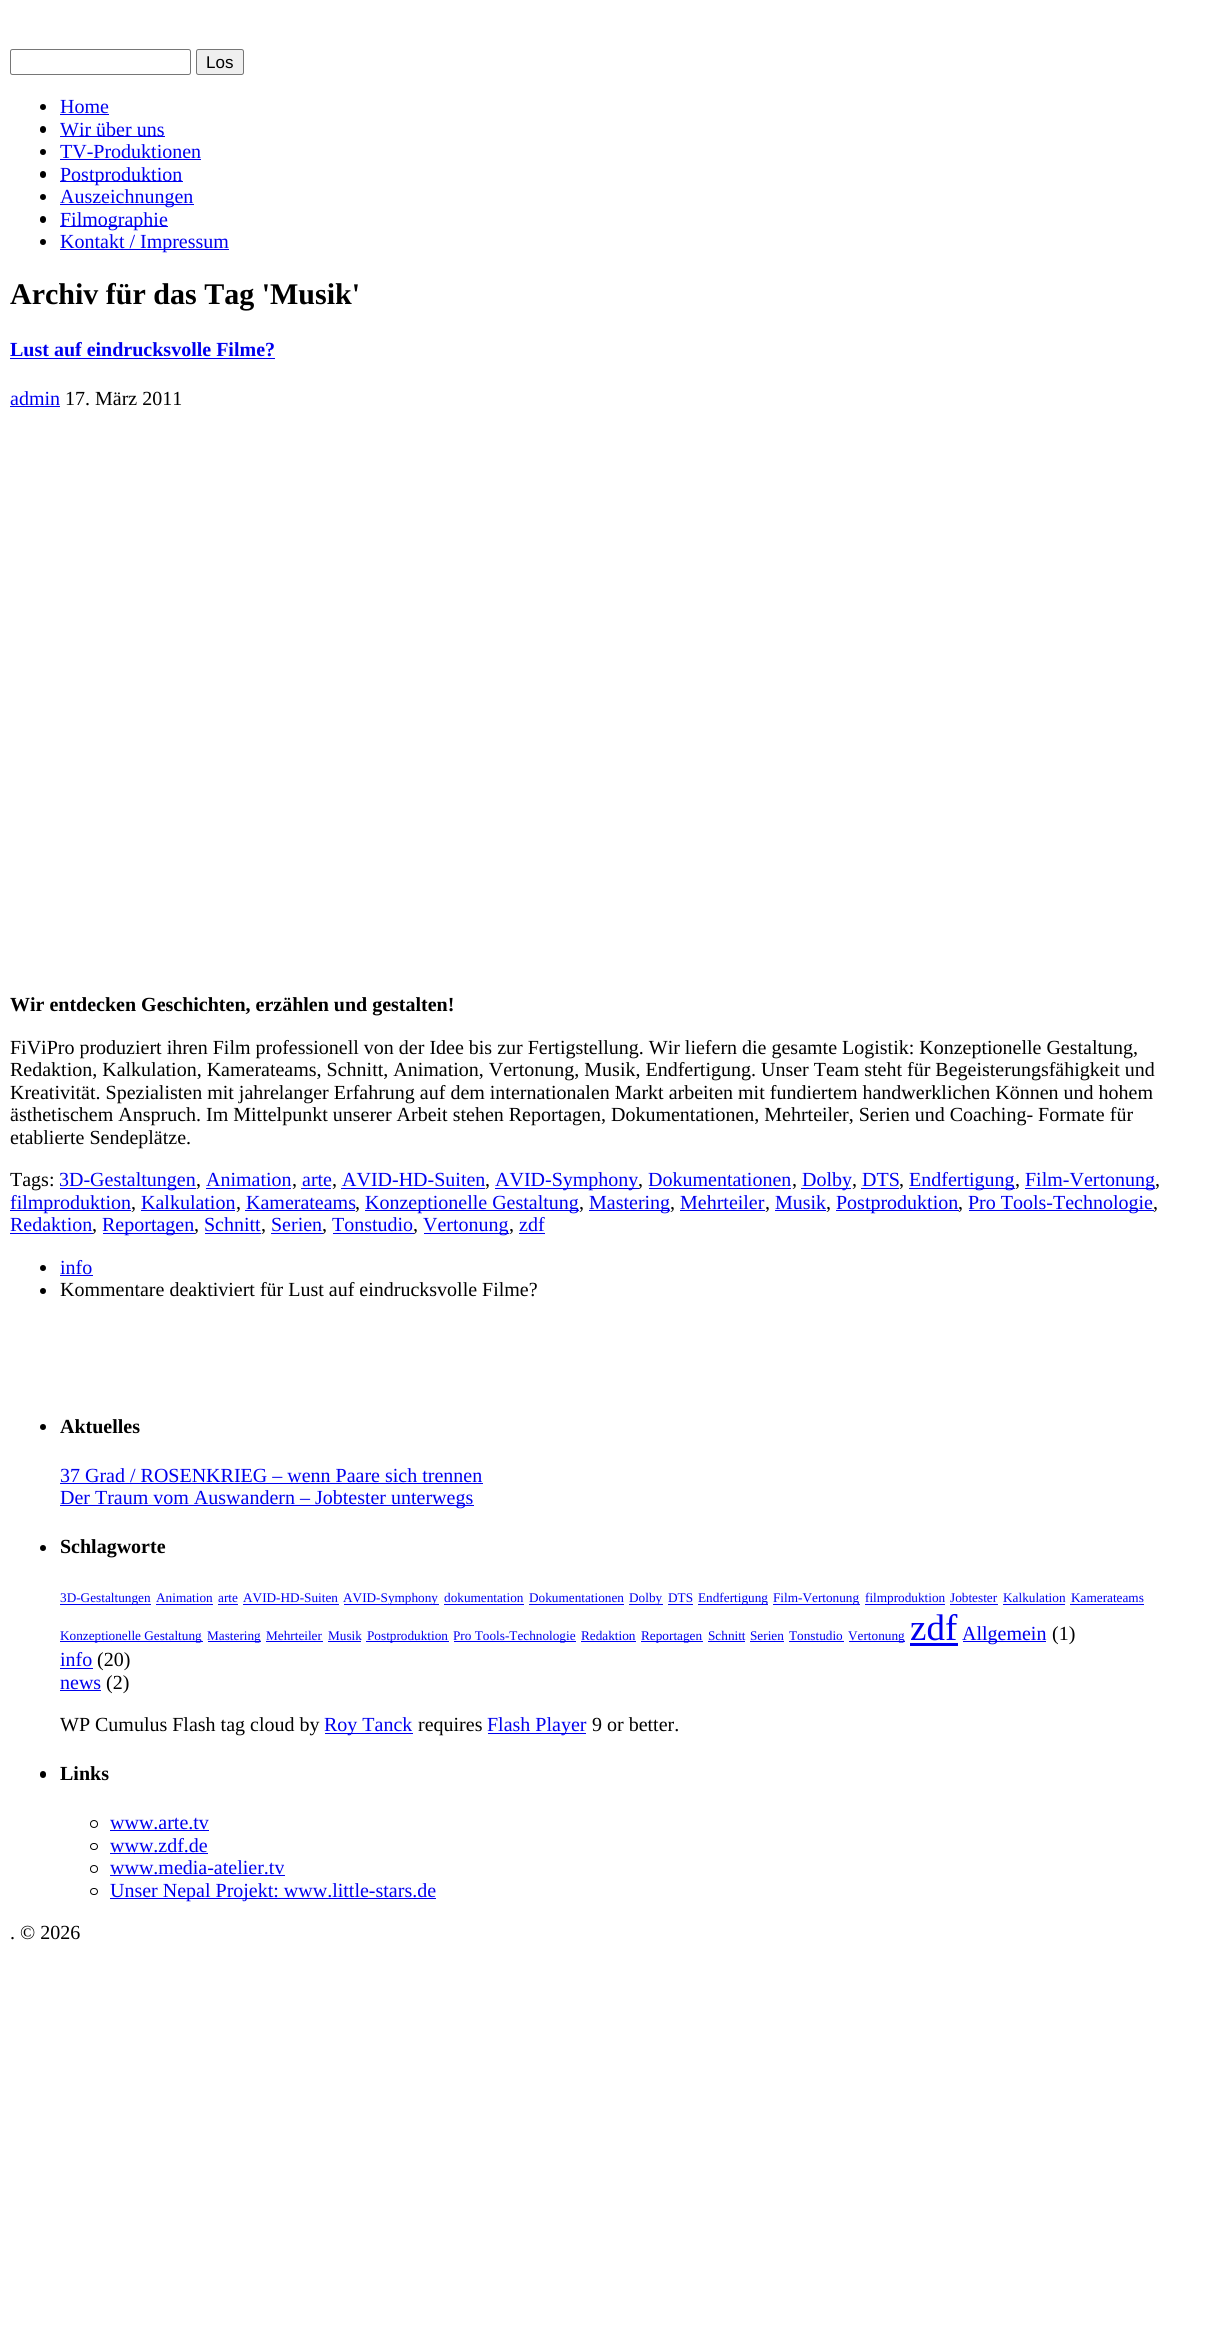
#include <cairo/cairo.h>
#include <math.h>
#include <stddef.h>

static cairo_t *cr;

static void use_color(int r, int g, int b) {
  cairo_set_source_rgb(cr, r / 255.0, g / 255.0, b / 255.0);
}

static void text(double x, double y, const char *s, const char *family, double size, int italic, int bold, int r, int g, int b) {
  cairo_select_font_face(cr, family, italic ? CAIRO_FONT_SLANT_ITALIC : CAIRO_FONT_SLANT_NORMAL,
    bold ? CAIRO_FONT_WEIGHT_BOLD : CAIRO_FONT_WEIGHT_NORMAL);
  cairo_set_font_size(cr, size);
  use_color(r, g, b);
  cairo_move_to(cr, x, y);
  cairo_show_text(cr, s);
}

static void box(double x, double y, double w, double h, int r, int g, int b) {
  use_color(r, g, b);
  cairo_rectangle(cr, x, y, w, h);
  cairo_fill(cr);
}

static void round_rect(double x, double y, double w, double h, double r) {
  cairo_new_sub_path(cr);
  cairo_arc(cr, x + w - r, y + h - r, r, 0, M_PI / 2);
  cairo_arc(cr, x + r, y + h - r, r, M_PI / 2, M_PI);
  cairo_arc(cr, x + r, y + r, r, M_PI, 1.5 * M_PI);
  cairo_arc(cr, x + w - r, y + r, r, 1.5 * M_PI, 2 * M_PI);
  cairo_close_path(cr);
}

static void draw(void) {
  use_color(255, 255, 255);
  cairo_paint(cr);
  round_rect(10.5, 49.5, 180, 25, 2);
  use_color(118, 118, 118);
  cairo_set_line_width(cr, 1);
  cairo_stroke(cr);
  use_color(239, 239, 239);
  round_rect(196.5, 49.5, 47, 25, 2);
  cairo_fill_preserve(cr);
  use_color(118, 118, 118);
  cairo_stroke(cr);
  use_color(0, 0, 0);
  cairo_arc(cr, 43, 107, 3, 0, 2 * M_PI);
  cairo_fill(cr);
  box(60, 114, 49, 1, 0, 0, 238);
  use_color(0, 0, 0);
  round_rect(40, 126, 6, 7, 3);
  cairo_fill(cr);
  box(60, 136, 105, 1, 0, 0, 238);
  use_color(0, 0, 0);
  cairo_arc(cr, 43, 152, 3, 0, 2 * M_PI);
  cairo_fill(cr);
  box(60, 159, 141, 1, 0, 0, 238);
  use_color(0, 0, 0);
  round_rect(40, 171, 6, 7, 3);
  cairo_fill(cr);
  box(60, 181, 123, 1, 0, 0, 238);
  use_color(0, 0, 0);
  cairo_arc(cr, 43, 197, 3, 0, 2 * M_PI);
  cairo_fill(cr);
  box(60, 204, 134, 1, 0, 0, 238);
  use_color(0, 0, 0);
  round_rect(40, 216, 6, 7, 3);
  cairo_fill(cr);
  box(60, 226, 108, 1, 0, 0, 238);
  use_color(0, 0, 0);
  cairo_arc(cr, 43, 242, 3, 0, 2 * M_PI);
  cairo_fill(cr);
  box(60, 249, 169, 1, 0, 0, 238);
  box(10, 358, 265, 1, 0, 0, 238);
  box(10, 406, 50, 1, 0, 0, 238);
  box(60, 1188, 136, 1, 0, 0, 238);
  box(206, 1188, 85, 1, 0, 0, 238);
  box(301, 1188, 30, 1, 0, 0, 238);
  box(341, 1188, 144, 1, 0, 0, 238);
  box(495, 1188, 144, 1, 0, 0, 238);
  box(649, 1188, 142, 1, 0, 0, 238);
  box(801, 1188, 50, 1, 0, 0, 238);
  box(861, 1188, 38, 1, 0, 0, 238);
  box(909, 1188, 106, 1, 0, 0, 238);
  box(1025, 1188, 130, 1, 0, 0, 238);
  box(10, 1210, 121, 1, 0, 0, 238);
  box(141, 1210, 94, 1, 0, 0, 238);
  box(245, 1210, 110, 1, 0, 0, 238);
  box(365, 1210, 214, 1, 0, 0, 238);
  box(589, 1210, 81, 1, 0, 0, 238);
  box(680, 1210, 85, 1, 0, 0, 238);
  box(775, 1210, 51, 1, 0, 0, 238);
  box(836, 1210, 123, 1, 0, 0, 238);
  box(969, 1210, 185, 1, 0, 0, 238);
  box(10, 1233, 83, 1, 0, 0, 238);
  box(103, 1233, 92, 1, 0, 0, 238);
  box(205, 1233, 56, 1, 0, 0, 238);
  box(271, 1233, 52, 1, 0, 0, 238);
  box(333, 1233, 81, 1, 0, 0, 238);
  box(424, 1233, 85, 1, 0, 0, 238);
  box(519, 1233, 26, 1, 0, 0, 238);
  use_color(0, 0, 0);
  cairo_arc(cr, 43, 1268, 3, 0, 2 * M_PI);
  cairo_fill(cr);
  box(60, 1275, 33, 1, 0, 0, 238);
  use_color(0, 0, 0);
  cairo_arc(cr, 43, 1291, 3, 0, 2 * M_PI);
  cairo_fill(cr);
  cairo_arc(cr, 43, 1427, 3, 0, 2 * M_PI);
  cairo_fill(cr);
  box(60, 1483, 423, 1, 0, 0, 238);
  box(60, 1505, 414, 1, 0, 0, 238);
  use_color(0, 0, 0);
  cairo_arc(cr, 43, 1548, 3, 0, 2 * M_PI);
  cairo_fill(cr);
  box(60, 1604, 91, 1, 0, 0, 238);
  box(156, 1604, 57, 1, 0, 0, 238);
  box(218, 1604, 20, 1, 0, 0, 238);
  box(243, 1604, 96, 1, 0, 0, 238);
  box(344, 1604, 95, 1, 0, 0, 238);
  box(444, 1604, 80, 1, 0, 0, 238);
  box(529, 1604, 95, 1, 0, 0, 238);
  box(629, 1604, 34, 1, 0, 0, 238);
  box(668, 1604, 25, 1, 0, 0, 238);
  box(698, 1604, 70, 1, 0, 0, 238);
  box(773, 1604, 87, 1, 0, 0, 238);
  box(865, 1604, 80, 1, 0, 0, 238);
  box(950, 1604, 48, 1, 0, 0, 238);
  box(1003, 1604, 62, 1, 0, 0, 238);
  box(1070, 1604, 74, 1, 0, 0, 238);
  box(60, 1641, 143, 1, 0, 0, 238);
  box(208, 1641, 53, 1, 0, 0, 238);
  box(266, 1641, 57, 1, 0, 0, 238);
  box(328, 1641, 33, 1, 0, 0, 238);
  box(366, 1641, 83, 1, 0, 0, 238);
  box(454, 1641, 122, 1, 0, 0, 238);
  box(581, 1641, 55, 1, 0, 0, 238);
  box(641, 1641, 62, 1, 0, 0, 238);
  box(708, 1641, 37, 1, 0, 0, 238);
  box(750, 1641, 34, 1, 0, 0, 238);
  box(789, 1641, 55, 1, 0, 0, 238);
  box(849, 1641, 56, 1, 0, 0, 238);
  box(910, 1643, 48, 3, 0, 0, 238);
  box(963, 1641, 83, 1, 0, 0, 238);
  box(60, 1668, 33, 1, 0, 0, 238);
  box(60, 1690, 41, 1, 0, 0, 238);
  box(325, 1733, 88, 1, 0, 0, 238);
  box(488, 1733, 98, 1, 0, 0, 238);
  use_color(0, 0, 0);
  round_rect(40, 1771, 6, 7, 3);
  cairo_fill(cr);
  cairo_arc(cr, 94, 1824, 3.5, 0, 2 * M_PI);
  cairo_stroke(cr);
  box(110, 1830, 99, 1, 0, 0, 238);
  round_rect(90.5, 1843.5, 7, 6, 3);
  use_color(0, 0, 0);
  cairo_stroke(cr);
  box(110, 1853, 98, 1, 0, 0, 238);
  cairo_arc(cr, 94, 1869, 3.5, 0, 2 * M_PI);
  use_color(0, 0, 0);
  cairo_stroke(cr);
  box(110, 1875, 175, 1, 0, 0, 238);
  round_rect(90.5, 1888.5, 7, 6, 3);
  use_color(0, 0, 0);
  cairo_stroke(cr);
  box(110, 1898, 326, 1, 0, 0, 238);
  text(206, 68, "Los", "Liberation Sans", 17, 0, 0, 0, 0, 0);
  text(60, 113, "Home", "Liberation Serif", 20, 0, 0, 0, 0, 238);
  text(60, 136, "Wir über uns", "Liberation Serif", 20, 0, 0, 0, 0, 238);
  text(60, 158, "TV-Produktionen", "Liberation Serif", 20, 0, 0, 0, 0, 238);
  text(60, 181, "Postproduktion", "Liberation Serif", 20, 0, 0, 0, 0, 238);
  text(60, 203, "Auszeichnungen", "Liberation Serif", 20, 0, 0, 0, 0, 238);
  text(60, 226, "Filmographie", "Liberation Serif", 20, 0, 0, 0, 0, 238);
  text(60, 248, "Kontakt / Impressum", "Liberation Serif", 20, 0, 0, 0, 0, 238);
  text(10, 304, "Archiv für das Tag 'Musik'", "Liberation Serif", 30, 0, 1, 0, 0, 0);
  text(10, 356, "Lust auf eindrucksvolle Filme?", "Liberation Serif", 20, 0, 1, 0, 0, 238);
  text(10, 405, "admin", "Liberation Serif", 20, 0, 0, 0, 0, 238);
  text(65, 405, "17. März 2011", "Liberation Serif", 20, 0, 0, 0, 0, 0);
  text(10, 1011, "Wir entdecken Geschichten, erzählen und gestalten!", "Liberation Serif", 20, 0, 1, 0, 0, 0);
  text(10, 1054, "FiViPro produziert ihren Film professionell von der Idee bis zur Fertigstellung. Wir liefern die gesamte Logistik: Konzeptionelle Gestaltung,", "Liberation Serif", 20, 0, 0, 0, 0, 0);
  text(10, 1076, "Redaktion, Kalkulation, Kamerateams, Schnitt, Animation, Vertonung, Musik, Endfertigung. Unser Team steht für Begeisterungsfähigkeit und", "Liberation Serif", 20, 0, 0, 0, 0, 0);
  text(10, 1099, "Kreativität. Spezialisten mit jahrelanger Erfahrung auf dem internationalen Markt arbeiten mit fundiertem handwerklichen Können und hohem", "Liberation Serif", 20, 0, 0, 0, 0, 0);
  text(10, 1121, "ästhetischem Anspruch. Im Mittelpunkt unserer Arbeit stehen Reportagen, Dokumentationen, Mehrteiler, Serien und Coaching- Formate für", "Liberation Serif", 20, 0, 0, 0, 0, 0);
  text(10, 1144, "etablierte Sendeplätze.", "Liberation Serif", 20, 0, 0, 0, 0, 0);
  text(10, 1186, "Tags:", "Liberation Serif", 20, 0, 0, 0, 0, 0);
  text(59, 1186, "3D-Gestaltungen", "Liberation Serif", 20, 0, 0, 0, 0, 238);
  text(196, 1186, ",", "Liberation Serif", 20, 0, 0, 0, 0, 0);
  text(206, 1186, "Animation", "Liberation Serif", 20, 0, 0, 0, 0, 238);
  text(292, 1186, ",", "Liberation Serif", 20, 0, 0, 0, 0, 0);
  text(302, 1186, "arte", "Liberation Serif", 20, 0, 0, 0, 0, 238);
  text(332, 1186, ",", "Liberation Serif", 20, 0, 0, 0, 0, 0);
  text(342, 1186, "AVID-HD-Suiten", "Liberation Serif", 20, 0, 0, 0, 0, 238);
  text(485, 1186, ",", "Liberation Serif", 20, 0, 0, 0, 0, 0);
  text(495, 1186, "AVID-Symphony", "Liberation Serif", 20, 0, 0, 0, 0, 238);
  text(638, 1186, ",", "Liberation Serif", 20, 0, 0, 0, 0, 0);
  text(648, 1186, "Dokumentationen", "Liberation Serif", 20, 0, 0, 0, 0, 238);
  text(792, 1186, ",", "Liberation Serif", 20, 0, 0, 0, 0, 0);
  text(802, 1186, "Dolby", "Liberation Serif", 20, 0, 0, 0, 0, 238);
  text(852, 1186, ",", "Liberation Serif", 20, 0, 0, 0, 0, 0);
  text(862, 1186, "DTS", "Liberation Serif", 20, 0, 0, 0, 0, 238);
  text(899, 1186, ",", "Liberation Serif", 20, 0, 0, 0, 0, 0);
  text(909, 1186, "Endfertigung", "Liberation Serif", 20, 0, 0, 0, 0, 238);
  text(1015, 1186, ",", "Liberation Serif", 20, 0, 0, 0, 0, 0);
  text(1025, 1186, "Film-Vertonung", "Liberation Serif", 20, 0, 0, 0, 0, 238);
  text(1155, 1186, ",", "Liberation Serif", 20, 0, 0, 0, 0, 0);
  text(10, 1209, "filmproduktion", "Liberation Serif", 20, 0, 0, 0, 0, 238);
  text(131, 1209, ",", "Liberation Serif", 20, 0, 0, 0, 0, 0);
  text(141, 1209, "Kalkulation", "Liberation Serif", 20, 0, 0, 0, 0, 238);
  text(236, 1209, ",", "Liberation Serif", 20, 0, 0, 0, 0, 0);
  text(246, 1209, "Kamerateams", "Liberation Serif", 20, 0, 0, 0, 0, 238);
  text(355, 1209, ",", "Liberation Serif", 20, 0, 0, 0, 0, 0);
  text(365, 1209, "Konzeptionelle Gestaltung", "Liberation Serif", 20, 0, 0, 0, 0, 238);
  text(579, 1209, ",", "Liberation Serif", 20, 0, 0, 0, 0, 0);
  text(589, 1209, "Mastering", "Liberation Serif", 20, 0, 0, 0, 0, 238);
  text(670, 1209, ",", "Liberation Serif", 20, 0, 0, 0, 0, 0);
  text(680, 1209, "Mehrteiler", "Liberation Serif", 20, 0, 0, 0, 0, 238);
  text(765, 1209, ",", "Liberation Serif", 20, 0, 0, 0, 0, 0);
  text(775, 1209, "Musik", "Liberation Serif", 20, 0, 0, 0, 0, 238);
  text(826, 1209, ",", "Liberation Serif", 20, 0, 0, 0, 0, 0);
  text(836, 1209, "Postproduktion", "Liberation Serif", 20, 0, 0, 0, 0, 238);
  text(958, 1209, ",", "Liberation Serif", 20, 0, 0, 0, 0, 0);
  text(968, 1209, "Pro Tools-Technologie", "Liberation Serif", 20, 0, 0, 0, 0, 238);
  text(1153, 1209, ",", "Liberation Serif", 20, 0, 0, 0, 0, 0);
  text(10, 1231, "Redaktion", "Liberation Serif", 20, 0, 0, 0, 0, 238);
  text(92, 1231, ",", "Liberation Serif", 20, 0, 0, 0, 0, 0);
  text(102, 1231, "Reportagen", "Liberation Serif", 20, 0, 0, 0, 0, 238);
  text(194, 1231, ",", "Liberation Serif", 20, 0, 0, 0, 0, 0);
  text(204, 1231, "Schnitt", "Liberation Serif", 20, 0, 0, 0, 0, 238);
  text(261, 1231, ",", "Liberation Serif", 20, 0, 0, 0, 0, 0);
  text(271, 1231, "Serien", "Liberation Serif", 20, 0, 0, 0, 0, 238);
  text(322, 1231, ",", "Liberation Serif", 20, 0, 0, 0, 0, 0);
  text(332, 1231, "Tonstudio", "Liberation Serif", 20, 0, 0, 0, 0, 238);
  text(413, 1231, ",", "Liberation Serif", 20, 0, 0, 0, 0, 0);
  text(423, 1231, "Vertonung", "Liberation Serif", 20, 0, 0, 0, 0, 238);
  text(509, 1231, ",", "Liberation Serif", 20, 0, 0, 0, 0, 0);
  text(519, 1231, "zdf", "Liberation Serif", 20, 0, 0, 0, 0, 238);
  text(60, 1274, "info", "Liberation Serif", 20, 0, 0, 0, 0, 238);
  text(60, 1296, "Kommentare deaktiviert für Lust auf eindrucksvolle Filme?", "Liberation Serif", 20, 0, 0, 0, 0, 0);
  text(60, 1433, "Aktuelles", "Liberation Serif", 20, 0, 1, 0, 0, 0);
  text(60, 1482, "37 Grad / ROSENKRIEG – wenn Paare sich trennen", "Liberation Serif", 20, 0, 0, 0, 0, 238);
  text(60, 1504, "Der Traum vom Auswandern – Jobtester unterwegs", "Liberation Serif", 20, 0, 0, 0, 0, 238);
  text(60, 1553, "Schlagworte", "Liberation Serif", 20, 0, 1, 0, 0, 0);
  text(60, 1602, "3D-Gestaltungen", "Liberation Serif", 13.25, 0, 0, 0, 0, 238);
  text(156, 1602, "Animation", "Liberation Serif", 13.25, 0, 0, 0, 0, 238);
  text(218, 1602, "arte", "Liberation Serif", 13.25, 0, 0, 0, 0, 238);
  text(243, 1602, "AVID-HD-Suiten", "Liberation Serif", 13.25, 0, 0, 0, 0, 238);
  text(343, 1602, "AVID-Symphony", "Liberation Serif", 13.25, 0, 0, 0, 0, 238);
  text(444, 1602, "dokumentation", "Liberation Serif", 13.25, 0, 0, 0, 0, 238);
  text(529, 1602, "Dokumentationen", "Liberation Serif", 13.25, 0, 0, 0, 0, 238);
  text(629, 1602, "Dolby", "Liberation Serif", 13.25, 0, 0, 0, 0, 238);
  text(668, 1602, "DTS", "Liberation Serif", 13.25, 0, 0, 0, 0, 238);
  text(698, 1602, "Endfertigung", "Liberation Serif", 13.25, 0, 0, 0, 0, 238);
  text(773, 1602, "Film-Vertonung", "Liberation Serif", 13.25, 0, 0, 0, 0, 238);
  text(865, 1602, "filmproduktion", "Liberation Serif", 13.25, 0, 0, 0, 0, 238);
  text(950, 1602, "Jobtester", "Liberation Serif", 13.25, 0, 0, 0, 0, 238);
  text(1003, 1602, "Kalkulation", "Liberation Serif", 13.25, 0, 0, 0, 0, 238);
  text(1071, 1602, "Kamerateams", "Liberation Serif", 13.25, 0, 0, 0, 0, 238);
  text(60, 1640, "Konzeptionelle Gestaltung", "Liberation Serif", 13.25, 0, 0, 0, 0, 238);
  text(207, 1640, "Mastering", "Liberation Serif", 13.25, 0, 0, 0, 0, 238);
  text(266, 1640, "Mehrteiler", "Liberation Serif", 13.25, 0, 0, 0, 0, 238);
  text(328, 1640, "Musik", "Liberation Serif", 13.25, 0, 0, 0, 0, 238);
  text(367, 1640, "Postproduktion", "Liberation Serif", 13.25, 0, 0, 0, 0, 238);
  text(453, 1640, "Pro Tools-Technologie", "Liberation Serif", 13.25, 0, 0, 0, 0, 238);
  text(581, 1640, "Redaktion", "Liberation Serif", 13.25, 0, 0, 0, 0, 238);
  text(641, 1640, "Reportagen", "Liberation Serif", 13.25, 0, 0, 0, 0, 238);
  text(708, 1640, "Schnitt", "Liberation Serif", 13.25, 0, 0, 0, 0, 238);
  text(750, 1640, "Serien", "Liberation Serif", 13.25, 0, 0, 0, 0, 238);
  text(789, 1640, "Tonstudio", "Liberation Serif", 13.25, 0, 0, 0, 0, 238);
  text(848, 1640, "Vertonung", "Liberation Serif", 13.25, 0, 0, 0, 0, 238);
  text(910, 1640, "zdf", "Liberation Serif", 37, 0, 0, 0, 0, 238);
  text(962, 1640, "Allgemein", "Liberation Serif", 20, 0, 0, 0, 0, 238);
  text(1052, 1640, "(1)", "Liberation Serif", 20, 0, 0, 0, 0, 0);
  text(60, 1666, "info", "Liberation Serif", 20, 0, 0, 0, 0, 238);
  text(97, 1666, "(20)", "Liberation Serif", 20, 0, 0, 0, 0, 0);
  text(60, 1689, "news", "Liberation Serif", 20, 0, 0, 0, 0, 238);
  text(106, 1689, "(2)", "Liberation Serif", 20, 0, 0, 0, 0, 0);
  text(60, 1731, "WP Cumulus Flash tag cloud by", "Liberation Serif", 20, 0, 0, 0, 0, 0);
  text(324, 1731, "Roy Tanck", "Liberation Serif", 20, 0, 0, 0, 0, 238);
  text(418, 1731, "requires", "Liberation Serif", 20, 0, 0, 0, 0, 0);
  text(487, 1731, "Flash Player", "Liberation Serif", 20, 0, 0, 0, 0, 238);
  text(592, 1731, "9 or better.", "Liberation Serif", 20, 0, 0, 0, 0, 0);
  text(60, 1780, "Links", "Liberation Serif", 20, 0, 1, 0, 0, 0);
  text(110, 1829, "www.arte.tv", "Liberation Serif", 20, 0, 0, 0, 0, 238);
  text(110, 1852, "www.zdf.de", "Liberation Serif", 20, 0, 0, 0, 0, 238);
  text(110, 1874, "www.media-atelier.tv", "Liberation Serif", 20, 0, 0, 0, 0, 238);
  text(110, 1897, "Unser Nepal Projekt: www.little-stars.de", "Liberation Serif", 20, 0, 0, 0, 0, 238);
  text(10, 1939, ". © 2026", "Liberation Serif", 20, 0, 0, 0, 0, 0);
}

int main(void) {
  cairo_surface_t *surface = cairo_image_surface_create(CAIRO_FORMAT_RGB24, 1214, 2332);
  cr = cairo_create(surface);
  cairo_font_options_t *options = cairo_font_options_create();
  cairo_font_options_set_hint_metrics(options, CAIRO_HINT_METRICS_OFF);
  cairo_font_options_set_hint_style(options, CAIRO_HINT_STYLE_NONE);
  cairo_set_font_options(cr, options);
  cairo_set_miter_limit(cr, 4);
  draw();
  cairo_surface_write_to_png(surface, "out.png");
  cairo_font_options_destroy(options);
  cairo_destroy(cr);
  cairo_surface_destroy(surface);
  return 0;
}
